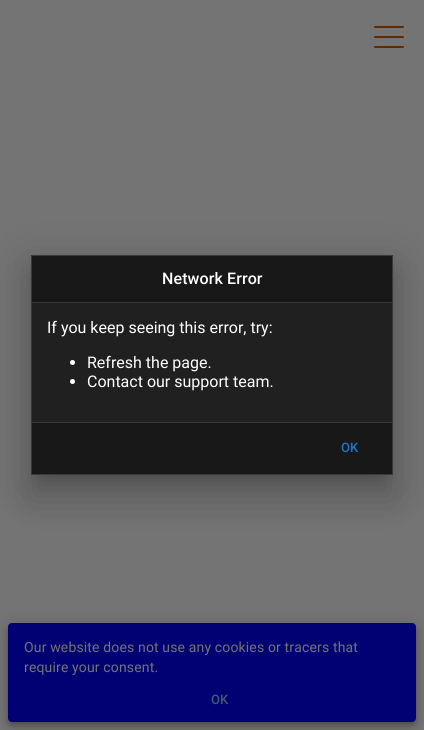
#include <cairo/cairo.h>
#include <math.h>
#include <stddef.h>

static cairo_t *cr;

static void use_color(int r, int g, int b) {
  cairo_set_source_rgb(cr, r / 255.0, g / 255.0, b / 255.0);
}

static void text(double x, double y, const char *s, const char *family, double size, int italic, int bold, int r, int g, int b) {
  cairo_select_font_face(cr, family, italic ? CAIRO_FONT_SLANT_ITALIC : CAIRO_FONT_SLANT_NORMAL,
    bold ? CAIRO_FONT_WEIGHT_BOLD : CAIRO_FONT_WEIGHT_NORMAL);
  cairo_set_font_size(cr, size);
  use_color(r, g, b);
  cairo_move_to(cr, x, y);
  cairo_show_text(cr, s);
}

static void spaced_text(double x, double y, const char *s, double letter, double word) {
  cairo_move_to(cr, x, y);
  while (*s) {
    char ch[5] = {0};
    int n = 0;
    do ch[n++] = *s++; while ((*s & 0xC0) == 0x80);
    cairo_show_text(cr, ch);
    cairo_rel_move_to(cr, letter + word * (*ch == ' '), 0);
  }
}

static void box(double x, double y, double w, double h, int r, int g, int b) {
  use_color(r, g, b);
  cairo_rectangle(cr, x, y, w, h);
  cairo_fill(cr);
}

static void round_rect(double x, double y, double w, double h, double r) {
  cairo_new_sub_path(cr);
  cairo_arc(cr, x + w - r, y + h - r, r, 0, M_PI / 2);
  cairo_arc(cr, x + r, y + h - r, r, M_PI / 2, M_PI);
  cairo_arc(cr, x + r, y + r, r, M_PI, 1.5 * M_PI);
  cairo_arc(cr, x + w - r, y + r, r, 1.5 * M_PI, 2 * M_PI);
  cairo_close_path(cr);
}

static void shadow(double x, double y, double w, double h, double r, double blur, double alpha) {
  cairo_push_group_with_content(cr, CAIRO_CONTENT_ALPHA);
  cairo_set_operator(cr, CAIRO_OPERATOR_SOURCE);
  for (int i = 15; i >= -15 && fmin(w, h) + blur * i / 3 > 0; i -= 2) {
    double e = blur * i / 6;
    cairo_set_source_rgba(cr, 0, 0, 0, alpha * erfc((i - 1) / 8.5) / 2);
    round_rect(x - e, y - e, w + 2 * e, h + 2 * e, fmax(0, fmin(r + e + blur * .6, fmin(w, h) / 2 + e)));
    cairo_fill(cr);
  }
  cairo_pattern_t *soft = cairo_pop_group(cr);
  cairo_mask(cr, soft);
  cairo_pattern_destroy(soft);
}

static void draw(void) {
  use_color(116, 116, 116);
  cairo_paint(cr);
  use_color(0, 0, 0);
  shadow(24, 257, 376, 234, 0, 23, 0.12);
  shadow(29, 277, 366, 224, 0, 19, 0.14);
  shadow(39, 274, 346, 204, 0, 7.5, 0.2);
  box(32, 303, 360, 119, 32, 32, 32);
  box(32, 423, 360, 51, 24, 24, 24);
  box(32, 422, 360, 1, 56, 56, 56);
  cairo_rectangle(cr, 31.5, 255.5, 361, 219);
  cairo_set_line_width(cr, 1);
  cairo_stroke(cr);
  box(32, 256, 360, 46, 24, 24, 24);
  box(32, 302, 360, 1, 56, 56, 56);
  use_color(255, 255, 255);
  cairo_arc(cr, 72.5, 362.5, 2.5, 0, 2 * M_PI);
  cairo_fill(cr);
  cairo_arc(cr, 72.5, 381.5, 2.5, 0, 2 * M_PI);
  cairo_fill(cr);
  use_color(97, 40, 1);
  round_rect(374, 36, 30, 2, 1);
  cairo_fill(cr);
  round_rect(374, 26, 30, 2, 1);
  cairo_fill(cr);
  round_rect(374, 46, 30, 2, 1);
  cairo_fill(cr);
  use_color(1, 1, 1);
  shadow(8, 624, 408, 99, 4, 9, 0.12);
  shadow(8, 629, 408, 99, 4, 5, 0.14);
  shadow(9, 627, 406, 97, 3, 2.5, 0.2);
  use_color(1, 1, 116);
  round_rect(8, 623, 408, 99, 4);
  cairo_fill(cr);
  cairo_select_font_face(cr, "Roboto Medium", CAIRO_FONT_SLANT_NORMAL, CAIRO_FONT_WEIGHT_NORMAL);
  cairo_set_font_size(cr, 16);
  use_color(255, 255, 255);
  spaced_text(162, 284, "Network Error", 0.1, 0);
  text(47, 333, "If you keep seeing this error, try:", "Roboto", 16, 0, 0, 255, 255, 255);
  text(87, 368, "Refresh the page.", "Roboto", 16, 0, 0, 255, 255, 255);
  text(87, 387, "Contact our support team.", "Roboto", 16, 0, 0, 255, 255, 255);
  text(341, 452, "OK", "Roboto Medium", 13, 0, 0, 25, 118, 210);
  cairo_select_font_face(cr, "Roboto", CAIRO_FONT_SLANT_NORMAL, CAIRO_FONT_WEIGHT_NORMAL);
  cairo_set_font_size(cr, 14);
  use_color(116, 116, 116);
  spaced_text(24, 652, "Our website does not use any cookies or tracers that", 0.15, 0);
  spaced_text(24, 672, "require your consent.", 0.15, 0);
  text(211, 704, "OK", "Roboto Medium", 13, 0, 0, 66, 92, 113);
}

int main(void) {
  cairo_surface_t *surface = cairo_image_surface_create(CAIRO_FORMAT_RGB24, 424, 730);
  cr = cairo_create(surface);
  cairo_font_options_t *options = cairo_font_options_create();
  cairo_font_options_set_hint_metrics(options, CAIRO_HINT_METRICS_OFF);
  cairo_font_options_set_hint_style(options, CAIRO_HINT_STYLE_NONE);
  cairo_set_font_options(cr, options);
  cairo_set_miter_limit(cr, 4);
  draw();
  cairo_surface_write_to_png(surface, "out.png");
  cairo_font_options_destroy(options);
  cairo_destroy(cr);
  cairo_surface_destroy(surface);
  return 0;
}
